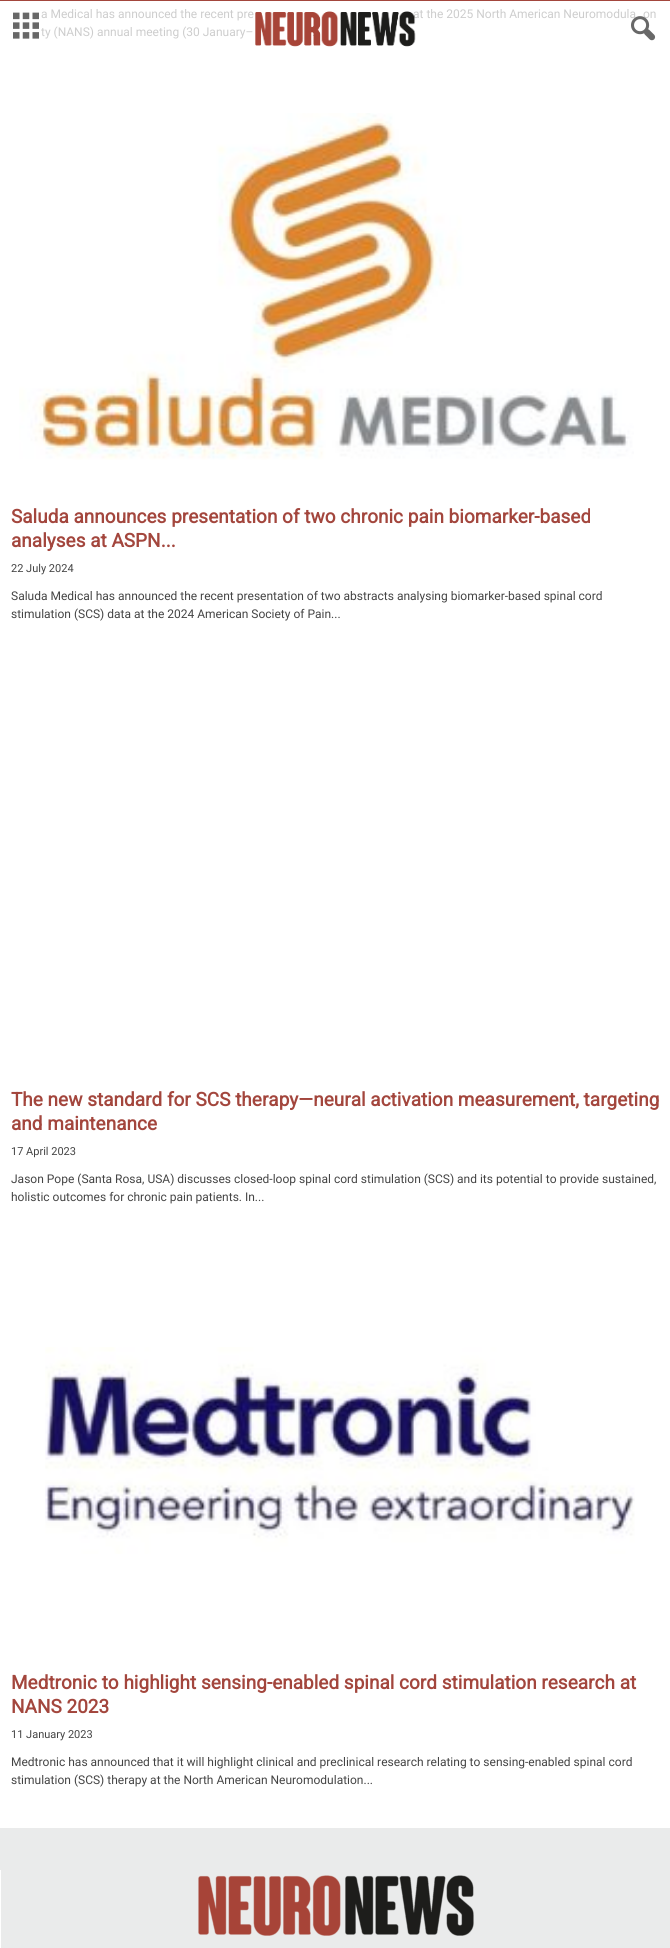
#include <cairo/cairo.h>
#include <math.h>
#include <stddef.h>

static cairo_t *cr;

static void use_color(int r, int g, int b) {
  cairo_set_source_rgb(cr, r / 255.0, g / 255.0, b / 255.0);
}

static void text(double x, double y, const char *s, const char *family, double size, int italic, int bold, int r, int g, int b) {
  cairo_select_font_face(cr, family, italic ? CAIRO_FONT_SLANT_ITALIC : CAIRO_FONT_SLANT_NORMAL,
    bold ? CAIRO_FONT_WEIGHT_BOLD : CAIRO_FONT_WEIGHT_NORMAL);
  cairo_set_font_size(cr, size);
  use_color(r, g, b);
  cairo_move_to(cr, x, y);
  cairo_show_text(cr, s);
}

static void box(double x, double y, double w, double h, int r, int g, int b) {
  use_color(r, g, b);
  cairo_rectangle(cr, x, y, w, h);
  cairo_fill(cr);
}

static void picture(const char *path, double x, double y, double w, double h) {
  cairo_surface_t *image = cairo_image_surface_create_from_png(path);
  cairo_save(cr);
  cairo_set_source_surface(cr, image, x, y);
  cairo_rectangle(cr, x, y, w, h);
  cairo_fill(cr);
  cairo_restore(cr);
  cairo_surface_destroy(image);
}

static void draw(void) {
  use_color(255, 255, 255);
  cairo_paint(cr);
  box(0, 0, 670, 1, 163, 70, 61);
  picture("img_01.png", 13, 12, 26, 27);
  picture("img_04.png", 19, 113, 615, 347);
  picture("img_05.png", 45, 1347, 590, 207);
  box(0, 1828, 670, 120, 234, 235, 235);
  box(0, 1870, 1, 78, 255, 255, 255);
  picture("img_06.png", 198, 1875, 276, 61);
  text(41, 18, "a Medical has announced the recent pre", "Roboto", 12, 0, 0, 205, 205, 205);
  text(413, 18, "at the 2025 North American Neuromodula", "Roboto", 12, 0, 0, 205, 205, 205);
  text(643, 18, "on", "Roboto", 12, 0, 0, 205, 205, 205);
  picture("img_03.png", 631, 16, 25, 25);
  text(41, 36, "ty (NANS) annual meeting (30 January–", "Roboto", 12, 0, 0, 205, 205, 205);
  text(312, 36, ".", "Roboto", 12, 0, 0, 205, 205, 205);
  picture("img_02.png", 255, 11, 161, 36);
  text(11, 523, "Saluda announces presentation of two chronic pain biomarker-based", "Roboto", 19, 0, 1, 163, 70, 61);
  text(11, 547, "analyses at ASPN...", "Roboto", 19, 0, 1, 163, 70, 61);
  text(11, 572, "22 July 2024", "Roboto", 11, 0, 0, 68, 68, 68);
  text(11, 600, "Saluda Medical has announced the recent presentation of two abstracts analysing biomarker-based spinal cord", "Roboto", 12, 0, 0, 68, 68, 68);
  text(11, 618, "stimulation (SCS) data at the 2024 American Society of Pain...", "Roboto", 12, 0, 0, 68, 68, 68);
  text(11, 1106, "The new standard for SCS therapy—neural activation measurement, targeting", "Roboto", 19, 0, 1, 163, 70, 61);
  text(11, 1130, "and maintenance", "Roboto", 19, 0, 1, 163, 70, 61);
  text(11, 1155, "17 April 2023", "Roboto", 11, 0, 0, 68, 68, 68);
  text(11, 1183, "Jason Pope (Santa Rosa, USA) discusses closed-loop spinal cord stimulation (SCS) and its potential to provide sustained,", "Roboto", 12, 0, 0, 68, 68, 68);
  text(11, 1201, "holistic outcomes for chronic pain patients. In...", "Roboto", 12, 0, 0, 68, 68, 68);
  text(11, 1689, "Medtronic to highlight sensing-enabled spinal cord stimulation research at", "Roboto", 19, 0, 1, 163, 70, 61);
  text(11, 1713, "NANS 2023", "Roboto", 19, 0, 1, 163, 70, 61);
  text(11, 1738, "11 January 2023", "Roboto", 11, 0, 0, 68, 68, 68);
  text(11, 1766, "Medtronic has announced that it will highlight clinical and preclinical research relating to sensing-enabled spinal cord", "Roboto", 12, 0, 0, 68, 68, 68);
  text(11, 1784, "stimulation (SCS) therapy at the North American Neuromodulation...", "Roboto", 12, 0, 0, 68, 68, 68);
}

int main(void) {
  cairo_surface_t *surface = cairo_image_surface_create(CAIRO_FORMAT_RGB24, 670, 1948);
  cr = cairo_create(surface);
  cairo_font_options_t *options = cairo_font_options_create();
  cairo_font_options_set_hint_metrics(options, CAIRO_HINT_METRICS_OFF);
  cairo_font_options_set_hint_style(options, CAIRO_HINT_STYLE_NONE);
  cairo_set_font_options(cr, options);
  cairo_set_miter_limit(cr, 4);
  draw();
  cairo_surface_write_to_png(surface, "out.png");
  cairo_font_options_destroy(options);
  cairo_destroy(cr);
  cairo_surface_destroy(surface);
  return 0;
}
